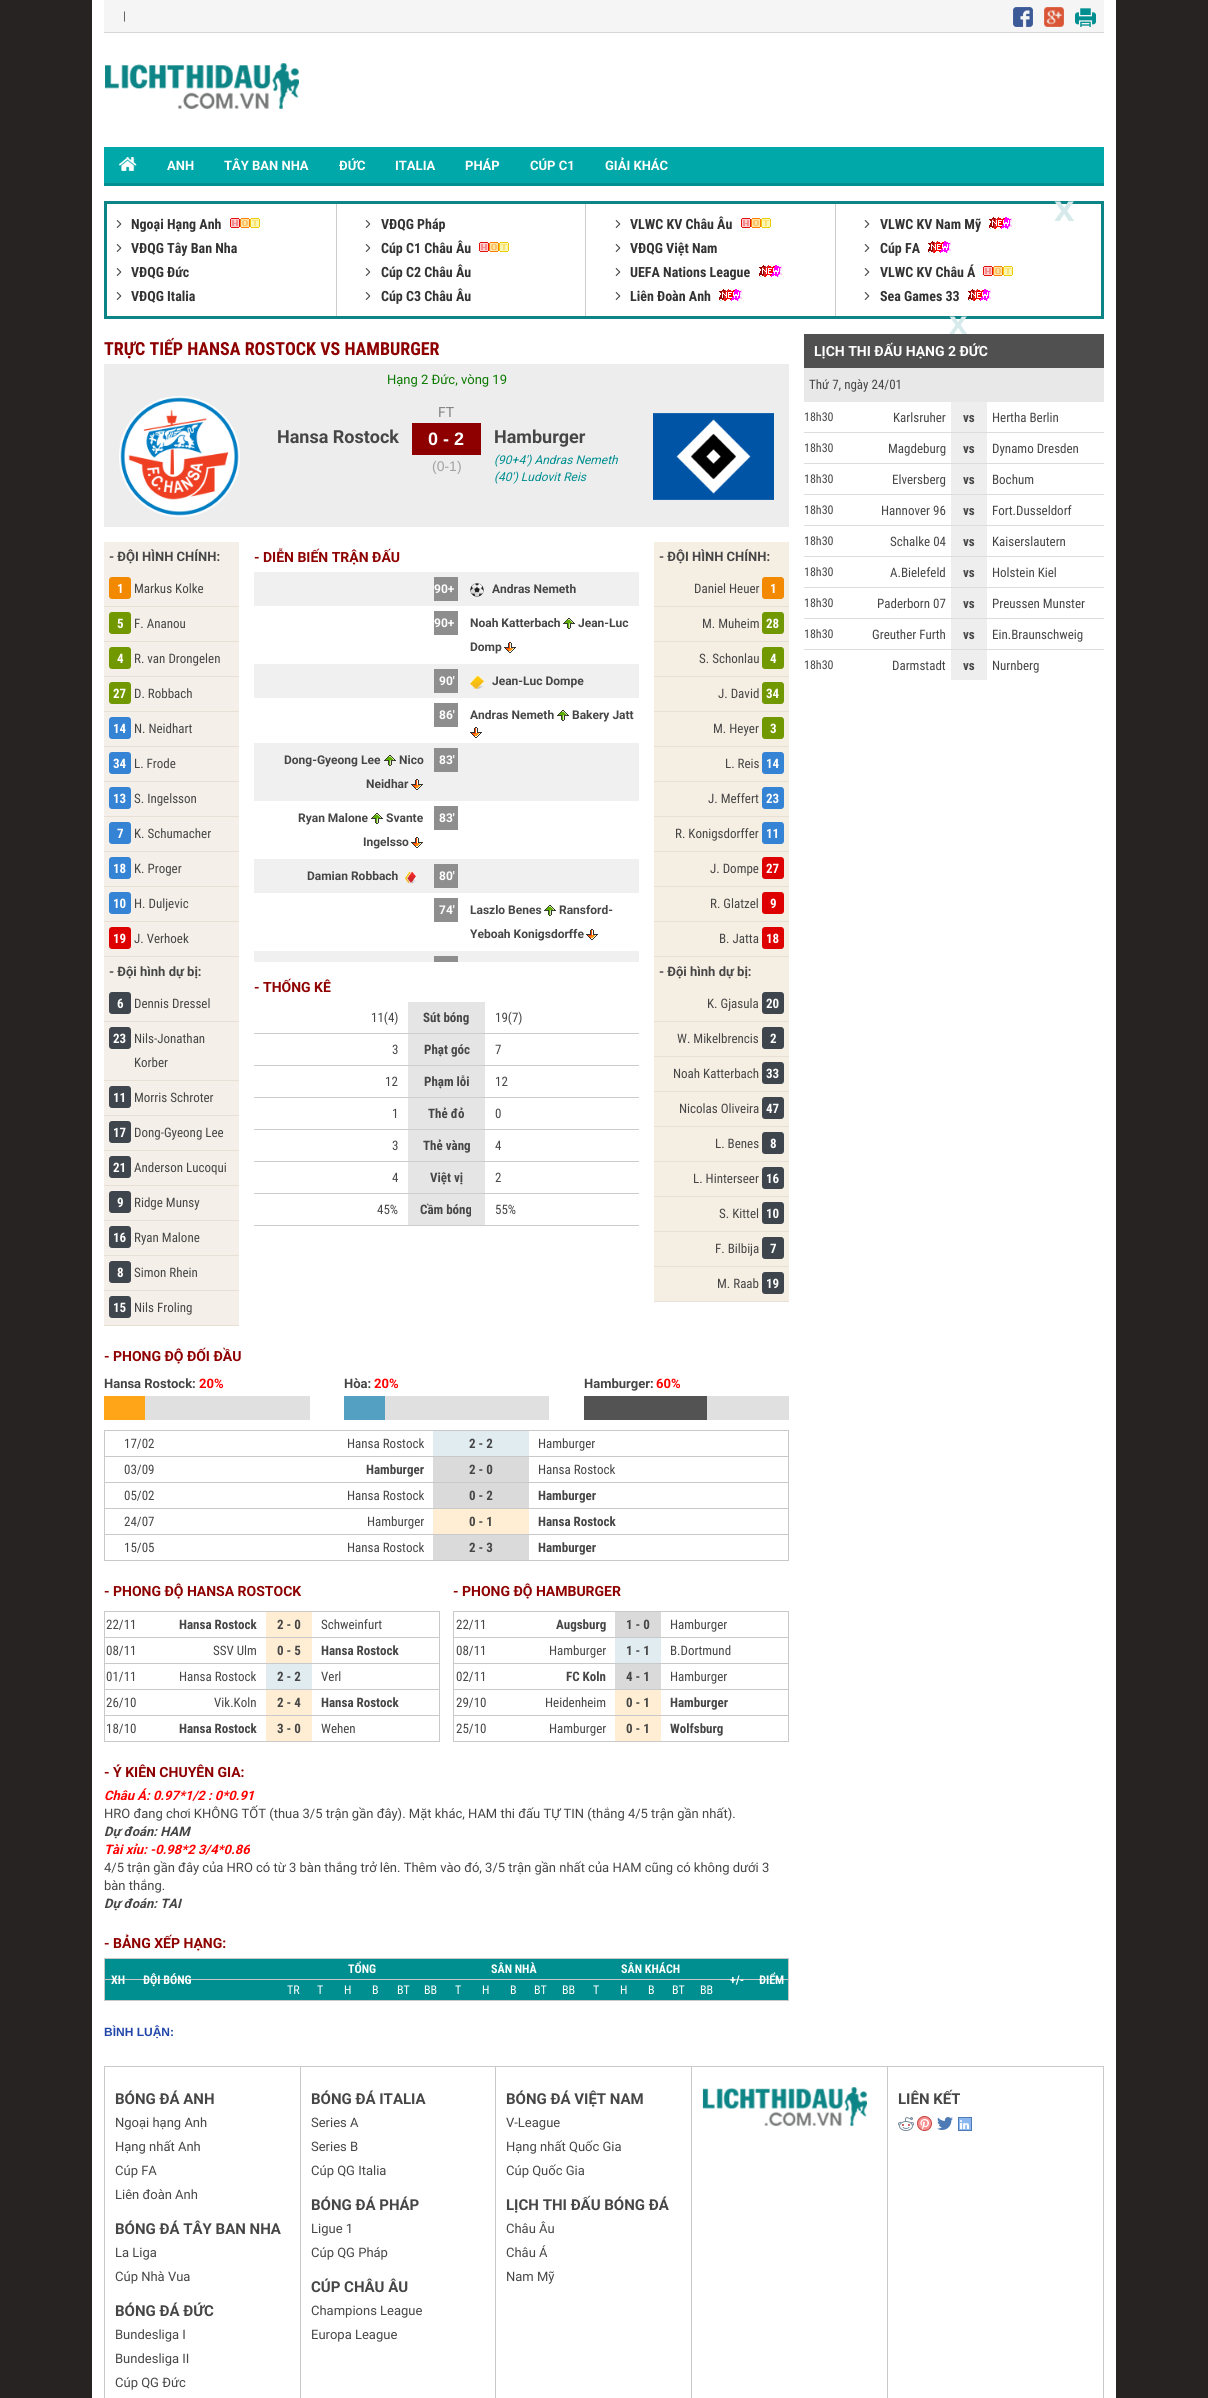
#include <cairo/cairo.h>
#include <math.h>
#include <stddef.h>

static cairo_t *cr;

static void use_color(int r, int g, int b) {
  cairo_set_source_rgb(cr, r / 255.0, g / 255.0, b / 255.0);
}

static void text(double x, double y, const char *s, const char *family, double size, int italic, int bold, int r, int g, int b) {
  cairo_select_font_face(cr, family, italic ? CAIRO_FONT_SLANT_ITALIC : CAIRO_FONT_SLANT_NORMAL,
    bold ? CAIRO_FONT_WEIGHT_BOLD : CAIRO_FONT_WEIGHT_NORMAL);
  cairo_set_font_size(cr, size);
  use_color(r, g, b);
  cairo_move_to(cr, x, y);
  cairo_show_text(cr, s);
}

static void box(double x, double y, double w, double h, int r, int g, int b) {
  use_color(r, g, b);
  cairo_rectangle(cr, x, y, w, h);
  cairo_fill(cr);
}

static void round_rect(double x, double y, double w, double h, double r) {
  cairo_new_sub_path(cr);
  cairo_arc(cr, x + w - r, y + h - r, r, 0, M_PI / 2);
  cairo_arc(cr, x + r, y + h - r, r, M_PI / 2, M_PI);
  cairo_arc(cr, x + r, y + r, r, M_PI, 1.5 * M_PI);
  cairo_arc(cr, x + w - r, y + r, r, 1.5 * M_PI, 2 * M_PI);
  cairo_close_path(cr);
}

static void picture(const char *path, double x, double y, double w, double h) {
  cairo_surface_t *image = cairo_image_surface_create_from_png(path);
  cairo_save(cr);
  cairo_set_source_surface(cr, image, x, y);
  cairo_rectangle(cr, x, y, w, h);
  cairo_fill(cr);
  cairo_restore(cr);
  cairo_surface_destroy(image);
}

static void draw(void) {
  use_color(39, 35, 34);
  cairo_paint(cr);
  box(92, 0, 1024, 2398, 255, 255, 255);
  box(104, 0, 1000, 32, 245, 245, 245);
  box(104, 32, 1000, 1, 214, 214, 214);
  picture("img_01.png", 1013, 7, 20, 20);
  picture("img_02.png", 1044, 7, 20, 20);
  picture("img_03.png", 1075, 8, 21, 19);
  picture("img_04.png", 105, 63, 194, 46);
  box(104, 147, 1000, 36, 0, 168, 169);
  box(104, 183, 1000, 3, 0, 143, 144);
  picture("img_05.png", 119, 157, 18, 14);
  cairo_rectangle(cr, 105.5, 202.5, 997, 115);
  use_color(13, 133, 134);
  cairo_set_line_width(cr, 3);
  cairo_stroke(cr);
  box(336, 204, 1, 112, 204, 204, 204);
  picture("img_06.png", 116, 220, 6, 8);
  picture("img_07.png", 230, 218, 30, 10);
  picture("img_06.png", 116, 244, 6, 8);
  picture("img_06.png", 116, 268, 6, 8);
  picture("img_06.png", 116, 292, 6, 8);
  box(585, 204, 1, 112, 204, 204, 204);
  picture("img_06.png", 365, 220, 6, 8);
  picture("img_06.png", 365, 244, 6, 8);
  picture("img_07.png", 479, 242, 30, 10);
  picture("img_06.png", 365, 268, 6, 8);
  picture("img_06.png", 365, 292, 6, 8);
  box(835, 204, 1, 112, 204, 204, 204);
  picture("img_06.png", 615, 220, 6, 8);
  picture("img_07.png", 741, 218, 30, 10);
  picture("img_06.png", 615, 244, 6, 8);
  picture("img_06.png", 615, 268, 6, 8);
  picture("img_08.png", 759, 265, 23, 12);
  picture("img_06.png", 615, 292, 6, 8);
  picture("img_08.png", 719, 289, 23, 12);
  picture("img_06.png", 864, 220, 6, 8);
  picture("img_08.png", 989, 217, 23, 12);
  picture("img_06.png", 864, 244, 6, 8);
  picture("img_08.png", 928, 241, 23, 12);
  picture("img_06.png", 864, 268, 6, 8);
  picture("img_07.png", 983, 266, 30, 10);
  picture("img_06.png", 864, 292, 6, 8);
  picture("img_08.png", 968, 289, 23, 12);
  box(104, 364, 685, 163, 237, 237, 237);
  picture("img_09.png", 119, 396, 121, 121);
  box(412, 423, 69, 32, 142, 0, 0);
  picture("img_10.png", 653, 413, 121, 87);
  box(104, 542, 135, 783, 244, 240, 233);
  box(104, 606, 135, 1, 232, 224, 212);
  use_color(242, 137, 0);
  round_rect(109, 577, 22, 22, 3);
  cairo_fill(cr);
  box(104, 641, 135, 1, 232, 224, 212);
  use_color(114, 152, 0);
  round_rect(109, 612, 22, 22, 3);
  cairo_fill(cr);
  box(104, 676, 135, 1, 232, 224, 212);
  use_color(114, 152, 0);
  round_rect(109, 647, 22, 22, 3);
  cairo_fill(cr);
  box(104, 711, 135, 1, 232, 224, 212);
  use_color(114, 152, 0);
  round_rect(109, 682, 22, 22, 3);
  cairo_fill(cr);
  box(104, 746, 135, 1, 232, 224, 212);
  use_color(52, 131, 212);
  round_rect(109, 717, 22, 22, 3);
  cairo_fill(cr);
  box(104, 781, 135, 1, 232, 224, 212);
  use_color(52, 131, 212);
  round_rect(109, 752, 22, 22, 3);
  cairo_fill(cr);
  box(104, 816, 135, 1, 232, 224, 212);
  use_color(52, 131, 212);
  round_rect(109, 787, 22, 22, 3);
  cairo_fill(cr);
  box(104, 851, 135, 1, 232, 224, 212);
  use_color(52, 131, 212);
  round_rect(109, 822, 22, 22, 3);
  cairo_fill(cr);
  box(104, 886, 135, 1, 232, 224, 212);
  use_color(52, 131, 212);
  round_rect(109, 857, 22, 22, 3);
  cairo_fill(cr);
  box(104, 921, 135, 1, 232, 224, 212);
  use_color(52, 131, 212);
  round_rect(109, 892, 22, 22, 3);
  cairo_fill(cr);
  box(104, 956, 135, 1, 232, 224, 212);
  use_color(222, 0, 0);
  round_rect(109, 927, 22, 22, 3);
  cairo_fill(cr);
  box(104, 1021, 135, 1, 232, 224, 212);
  use_color(62, 69, 76);
  round_rect(109, 992, 22, 22, 3);
  cairo_fill(cr);
  box(104, 1080, 135, 1, 232, 224, 212);
  use_color(62, 69, 76);
  round_rect(109, 1027, 22, 22, 3);
  cairo_fill(cr);
  box(104, 1115, 135, 1, 232, 224, 212);
  use_color(62, 69, 76);
  round_rect(109, 1086, 22, 22, 3);
  cairo_fill(cr);
  box(104, 1150, 135, 1, 232, 224, 212);
  use_color(62, 69, 76);
  round_rect(109, 1121, 22, 22, 3);
  cairo_fill(cr);
  box(104, 1185, 135, 1, 232, 224, 212);
  use_color(62, 69, 76);
  round_rect(109, 1156, 22, 22, 3);
  cairo_fill(cr);
  box(104, 1220, 135, 1, 232, 224, 212);
  use_color(62, 69, 76);
  round_rect(109, 1191, 22, 22, 3);
  cairo_fill(cr);
  box(104, 1255, 135, 1, 232, 224, 212);
  use_color(62, 69, 76);
  round_rect(109, 1226, 22, 22, 3);
  cairo_fill(cr);
  box(104, 1290, 135, 1, 232, 224, 212);
  use_color(62, 69, 76);
  round_rect(109, 1261, 22, 22, 3);
  cairo_fill(cr);
  box(104, 1325, 135, 1, 232, 224, 212);
  use_color(62, 69, 76);
  round_rect(109, 1296, 22, 22, 3);
  cairo_fill(cr);
  box(254, 572, 385, 34, 240, 240, 240);
  box(434, 577, 24, 24, 142, 142, 142);
  picture("img_11.png", 470, 583, 14, 14);
  box(434, 611, 24, 24, 142, 142, 142);
  picture("img_12.png", 563, 618, 12, 11);
  picture("img_13.png", 504, 642, 12, 11);
  box(254, 664, 385, 34, 240, 240, 240);
  box(434, 669, 24, 24, 142, 142, 142);
  picture("img_14.png", 470, 675, 14, 14);
  box(434, 703, 24, 24, 142, 142, 142);
  picture("img_12.png", 557, 710, 12, 11);
  picture("img_13.png", 470, 727, 12, 11);
  box(254, 743, 385, 58, 240, 240, 240);
  picture("img_15.png", 384, 755, 12, 11);
  picture("img_16.png", 411, 779, 12, 11);
  box(434, 748, 24, 24, 142, 142, 142);
  picture("img_12.png", 371, 813, 12, 11);
  picture("img_13.png", 411, 837, 12, 11);
  box(434, 806, 24, 24, 142, 142, 142);
  box(254, 859, 385, 34, 240, 240, 240);
  picture("img_17.png", 404, 871, 13, 13);
  box(434, 864, 24, 24, 142, 142, 142);
  box(434, 898, 24, 24, 142, 142, 142);
  picture("img_12.png", 544, 905, 12, 11);
  picture("img_13.png", 586, 929, 12, 11);
  box(254, 951, 385, 11, 240, 240, 240);
  box(434, 956, 24, 6, 142, 142, 142);
  box(408, 1002, 77, 31, 229, 229, 229);
  box(254, 1033, 385, 1, 204, 204, 204);
  box(408, 1034, 77, 31, 229, 229, 229);
  box(254, 1065, 385, 1, 204, 204, 204);
  box(408, 1066, 77, 31, 229, 229, 229);
  box(254, 1097, 385, 1, 204, 204, 204);
  box(408, 1098, 77, 31, 229, 229, 229);
  box(254, 1129, 385, 1, 204, 204, 204);
  box(408, 1130, 77, 31, 229, 229, 229);
  box(254, 1161, 385, 1, 204, 204, 204);
  box(408, 1162, 77, 31, 229, 229, 229);
  box(254, 1193, 385, 1, 204, 204, 204);
  box(408, 1194, 77, 31, 229, 229, 229);
  box(254, 1225, 385, 1, 204, 204, 204);
  box(654, 542, 135, 759, 245, 238, 227);
  box(654, 606, 135, 1, 232, 224, 212);
  use_color(242, 137, 0);
  round_rect(762, 577, 22, 22, 3);
  cairo_fill(cr);
  box(654, 641, 135, 1, 232, 224, 212);
  use_color(114, 152, 0);
  round_rect(762, 612, 22, 22, 3);
  cairo_fill(cr);
  box(654, 676, 135, 1, 232, 224, 212);
  use_color(114, 152, 0);
  round_rect(762, 647, 22, 22, 3);
  cairo_fill(cr);
  box(654, 711, 135, 1, 232, 224, 212);
  use_color(114, 152, 0);
  round_rect(762, 682, 22, 22, 3);
  cairo_fill(cr);
  box(654, 746, 135, 1, 232, 224, 212);
  use_color(114, 152, 0);
  round_rect(762, 717, 22, 22, 3);
  cairo_fill(cr);
  box(654, 781, 135, 1, 232, 224, 212);
  use_color(52, 131, 212);
  round_rect(762, 752, 22, 22, 3);
  cairo_fill(cr);
  box(654, 816, 135, 1, 232, 224, 212);
  use_color(52, 131, 212);
  round_rect(762, 787, 22, 22, 3);
  cairo_fill(cr);
  box(654, 851, 135, 1, 232, 224, 212);
  use_color(52, 131, 212);
  round_rect(762, 822, 22, 22, 3);
  cairo_fill(cr);
  box(654, 886, 135, 1, 232, 224, 212);
  use_color(222, 0, 0);
  round_rect(762, 857, 22, 22, 3);
  cairo_fill(cr);
  box(654, 921, 135, 1, 232, 224, 212);
  use_color(222, 0, 0);
  round_rect(762, 892, 22, 22, 3);
  cairo_fill(cr);
  box(654, 956, 135, 1, 232, 224, 212);
  use_color(222, 0, 0);
  round_rect(762, 927, 22, 22, 3);
  cairo_fill(cr);
  box(654, 1021, 135, 1, 232, 224, 212);
  use_color(62, 69, 76);
  round_rect(762, 992, 22, 22, 3);
  cairo_fill(cr);
  box(654, 1056, 135, 1, 232, 224, 212);
  use_color(62, 69, 76);
  round_rect(762, 1027, 22, 22, 3);
  cairo_fill(cr);
  box(654, 1091, 135, 1, 232, 224, 212);
  use_color(62, 69, 76);
  round_rect(762, 1062, 22, 22, 3);
  cairo_fill(cr);
  box(654, 1126, 135, 1, 232, 224, 212);
  use_color(62, 69, 76);
  round_rect(762, 1097, 22, 22, 3);
  cairo_fill(cr);
  box(654, 1161, 135, 1, 232, 224, 212);
  use_color(62, 69, 76);
  round_rect(762, 1132, 22, 22, 3);
  cairo_fill(cr);
  box(654, 1196, 135, 1, 232, 224, 212);
  use_color(62, 69, 76);
  round_rect(762, 1167, 22, 22, 3);
  cairo_fill(cr);
  box(654, 1231, 135, 1, 232, 224, 212);
  use_color(62, 69, 76);
  round_rect(762, 1202, 22, 22, 3);
  cairo_fill(cr);
  box(654, 1266, 135, 1, 232, 224, 212);
  use_color(62, 69, 76);
  round_rect(762, 1237, 22, 22, 3);
  cairo_fill(cr);
  box(654, 1301, 135, 1, 232, 224, 212);
  use_color(62, 69, 76);
  round_rect(762, 1272, 22, 22, 3);
  cairo_fill(cr);
  box(145, 1396, 165, 24, 224, 224, 224);
  box(104, 1396, 41, 24, 255, 165, 23);
  box(385, 1396, 164, 24, 224, 224, 224);
  box(344, 1396, 41, 24, 83, 160, 195);
  box(707, 1396, 82, 24, 224, 224, 224);
  box(584, 1396, 123, 24, 83, 83, 83);
  box(104, 1430, 685, 131, 201, 201, 201);
  box(105, 1431, 683, 25, 255, 255, 255);
  box(433, 1431, 96, 25, 225, 236, 241);
  box(105, 1457, 683, 25, 255, 255, 255);
  box(433, 1457, 96, 25, 218, 218, 218);
  box(105, 1483, 683, 25, 255, 255, 255);
  box(433, 1483, 96, 25, 218, 218, 218);
  box(105, 1509, 683, 25, 255, 255, 255);
  box(433, 1509, 96, 25, 255, 238, 211);
  box(105, 1535, 683, 25, 255, 255, 255);
  box(433, 1535, 96, 25, 218, 218, 218);
  box(104, 1611, 336, 131, 201, 201, 201);
  box(105, 1612, 334, 25, 255, 255, 255);
  box(266, 1612, 46, 25, 255, 238, 211);
  box(105, 1638, 334, 25, 255, 255, 255);
  box(266, 1638, 46, 25, 255, 238, 211);
  box(105, 1664, 334, 25, 255, 255, 255);
  box(266, 1664, 46, 25, 225, 236, 241);
  box(105, 1690, 334, 25, 255, 255, 255);
  box(266, 1690, 46, 25, 255, 238, 211);
  box(105, 1716, 334, 25, 255, 255, 255);
  box(266, 1716, 46, 25, 255, 238, 211);
  box(453, 1611, 336, 131, 201, 201, 201);
  box(454, 1612, 334, 25, 255, 255, 255);
  box(615, 1612, 46, 25, 218, 218, 218);
  box(454, 1638, 334, 25, 255, 255, 255);
  box(615, 1638, 46, 25, 225, 236, 241);
  box(454, 1664, 334, 25, 255, 255, 255);
  box(615, 1664, 46, 25, 218, 218, 218);
  box(454, 1690, 334, 25, 255, 255, 255);
  box(615, 1690, 46, 25, 255, 238, 211);
  box(454, 1716, 334, 25, 255, 255, 255);
  box(615, 1716, 46, 25, 255, 238, 211);
  box(104, 1958, 685, 43, 201, 201, 201);
  box(105, 1959, 683, 20, 0, 143, 144);
  box(105, 1980, 683, 20, 0, 143, 144);
  box(804, 334, 300, 34, 80, 80, 80);
  box(804, 368, 300, 34, 232, 232, 232);
  box(951, 402, 36, 30, 238, 238, 238);
  box(804, 432, 300, 1, 221, 221, 221);
  box(951, 433, 36, 30, 238, 238, 238);
  box(804, 463, 300, 1, 221, 221, 221);
  box(951, 464, 36, 30, 238, 238, 238);
  box(804, 494, 300, 1, 221, 221, 221);
  box(951, 495, 36, 30, 238, 238, 238);
  box(804, 525, 300, 1, 221, 221, 221);
  box(951, 526, 36, 30, 238, 238, 238);
  box(804, 556, 300, 1, 221, 221, 221);
  box(951, 557, 36, 30, 238, 238, 238);
  box(804, 587, 300, 1, 221, 221, 221);
  box(951, 588, 36, 30, 238, 238, 238);
  box(804, 618, 300, 1, 221, 221, 221);
  box(951, 619, 36, 30, 238, 238, 238);
  box(804, 649, 300, 1, 221, 221, 221);
  box(951, 650, 36, 30, 238, 238, 238);
  cairo_rectangle(cr, 104.5, 2066.5, 999, 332);
  use_color(201, 201, 201);
  cairo_set_line_width(cr, 1);
  cairo_stroke(cr);
  box(300, 2067, 1, 331, 201, 201, 201);
  box(495, 2067, 1, 331, 201, 201, 201);
  box(691, 2067, 1, 331, 201, 201, 201);
  box(887, 2067, 1, 331, 201, 201, 201);
  picture("img_18.png", 702, 2087, 165, 39);
  picture("img_19.png", 898, 2117, 16, 14);
  picture("img_20.png", 917, 2116, 15, 15);
  picture("img_21.png", 937, 2117, 16, 13);
  picture("img_22.png", 958, 2117, 14, 14);
  text(123, 20, "|", "Roboto", 12, 0, 0, 80, 80, 80);
  text(167, 170, "ANH", "Roboto", 13, 0, 1, 255, 255, 255);
  text(224, 170, "TÂY BAN NHA", "Roboto", 13, 0, 1, 255, 255, 255);
  text(339, 170, "ĐỨC", "Roboto", 13, 0, 1, 255, 255, 255);
  text(395, 170, "ITALIA", "Roboto", 13, 0, 1, 255, 255, 255);
  text(465, 170, "PHÁP", "Roboto", 13, 0, 1, 255, 255, 255);
  text(530, 170, "CÚP C1", "Roboto", 13, 0, 1, 255, 255, 255);
  text(605, 170, "GIẢI KHÁC", "Roboto", 13, 0, 1, 255, 255, 255);
  text(1054, 221, "x", "Liberation Sans", 37, 0, 1, 214, 234, 235);
  text(131, 229, "Ngoại Hạng Anh", "Roboto Condensed", 14, 0, 1, 51, 51, 51);
  text(131, 253, "VĐQG Tây Ban Nha", "Roboto Condensed", 14, 0, 1, 51, 51, 51);
  text(131, 277, "VĐQG Đức", "Roboto Condensed", 14, 0, 1, 51, 51, 51);
  text(131, 301, "VĐQG Italia", "Roboto Condensed", 14, 0, 1, 51, 51, 51);
  text(381, 229, "VĐQG Pháp", "Roboto Condensed", 14, 0, 1, 51, 51, 51);
  text(381, 253, "Cúp C1 Châu Âu", "Roboto Condensed", 14, 0, 1, 51, 51, 51);
  text(381, 277, "Cúp C2 Châu Âu", "Roboto Condensed", 14, 0, 1, 51, 51, 51);
  text(381, 301, "Cúp C3 Châu Âu", "Roboto Condensed", 14, 0, 1, 51, 51, 51);
  text(630, 229, "VLWC KV Châu Âu", "Roboto Condensed", 14, 0, 1, 51, 51, 51);
  text(630, 253, "VĐQG Việt Nam", "Roboto Condensed", 14, 0, 1, 51, 51, 51);
  text(630, 277, "UEFA Nations League", "Roboto Condensed", 14, 0, 1, 51, 51, 51);
  text(630, 301, "Liên Đoàn Anh", "Roboto Condensed", 14, 0, 1, 51, 51, 51);
  text(880, 229, "VLWC KV Nam Mỹ", "Roboto Condensed", 14, 0, 1, 51, 51, 51);
  text(880, 253, "Cúp FA", "Roboto Condensed", 14, 0, 1, 51, 51, 51);
  text(880, 277, "VLWC KV Châu Á", "Roboto Condensed", 14, 0, 1, 51, 51, 51);
  text(880, 301, "Sea Games 33", "Roboto Condensed", 14, 0, 1, 51, 51, 51);
  text(949, 334, "x", "Liberation Sans", 33, 0, 1, 214, 234, 235);
  text(104, 355, "TRỰC TIẾP HANSA ROSTOCK VS HAMBURGER", "Roboto Condensed", 18, 0, 1, 142, 0, 0);
  text(387, 384, "Hạng 2 Đức, vòng 19", "Roboto", 13, 0, 0, 11, 121, 0);
  text(277, 443, "Hansa Rostock", "Roboto", 18, 0, 1, 70, 70, 70);
  text(438, 417, "FT", "Roboto", 14, 0, 0, 130, 130, 130);
  text(428, 445, "0 - 2", "Liberation Sans", 18, 0, 1, 255, 255, 255);
  text(432, 471, "(0-1)", "Liberation Sans", 14, 0, 0, 162, 162, 162);
  text(494, 443, "Hamburger", "Roboto", 18, 0, 1, 70, 70, 70);
  text(494, 464, "(90+4') Andras Nemeth", "Roboto", 12, 1, 0, 0, 143, 144);
  text(494, 481, "(40') Ludovit Reis", "Roboto", 12, 1, 0, 0, 143, 144);
  text(109, 561, "- ĐỘI HÌNH CHÍNH:", "Roboto", 13, 0, 1, 70, 70, 70);
  text(117, 593, "1", "Roboto Condensed", 13, 0, 1, 255, 255, 255);
  text(134, 593, "Markus Kolke", "Roboto Condensed", 13, 0, 0, 70, 70, 70);
  text(117, 628, "5", "Roboto Condensed", 13, 0, 1, 255, 255, 255);
  text(134, 628, "F. Ananou", "Roboto Condensed", 13, 0, 0, 70, 70, 70);
  text(117, 663, "4", "Roboto Condensed", 13, 0, 1, 255, 255, 255);
  text(134, 663, "R. van Drongelen", "Roboto Condensed", 13, 0, 0, 70, 70, 70);
  text(113, 698, "27", "Roboto Condensed", 13, 0, 1, 255, 255, 255);
  text(134, 698, "D. Robbach", "Roboto Condensed", 13, 0, 0, 70, 70, 70);
  text(113, 733, "14", "Roboto Condensed", 13, 0, 1, 255, 255, 255);
  text(134, 733, "N. Neidhart", "Roboto Condensed", 13, 0, 0, 70, 70, 70);
  text(113, 768, "34", "Roboto Condensed", 13, 0, 1, 255, 255, 255);
  text(134, 768, "L. Frode", "Roboto Condensed", 13, 0, 0, 70, 70, 70);
  text(113, 803, "13", "Roboto Condensed", 13, 0, 1, 255, 255, 255);
  text(134, 803, "S. Ingelsson", "Roboto Condensed", 13, 0, 0, 70, 70, 70);
  text(117, 838, "7", "Roboto Condensed", 13, 0, 1, 255, 255, 255);
  text(134, 838, "K. Schumacher", "Roboto Condensed", 13, 0, 0, 70, 70, 70);
  text(113, 873, "18", "Roboto Condensed", 13, 0, 1, 255, 255, 255);
  text(134, 873, "K. Proger", "Roboto Condensed", 13, 0, 0, 70, 70, 70);
  text(113, 908, "10", "Roboto Condensed", 13, 0, 1, 255, 255, 255);
  text(134, 908, "H. Duljevic", "Roboto Condensed", 13, 0, 0, 70, 70, 70);
  text(113, 943, "19", "Roboto Condensed", 13, 0, 1, 255, 255, 255);
  text(134, 943, "J. Verhoek", "Roboto Condensed", 13, 0, 0, 70, 70, 70);
  text(109, 976, "- Đội hình dự bị:", "Roboto", 13, 0, 1, 70, 70, 70);
  text(117, 1008, "6", "Roboto Condensed", 13, 0, 1, 255, 255, 255);
  text(134, 1008, "Dennis Dressel", "Roboto Condensed", 13, 0, 0, 70, 70, 70);
  text(113, 1043, "23", "Roboto Condensed", 13, 0, 1, 255, 255, 255);
  text(134, 1043, "Nils-Jonathan", "Roboto Condensed", 13, 0, 0, 70, 70, 70);
  text(134, 1067, "Korber", "Roboto Condensed", 13, 0, 0, 70, 70, 70);
  text(113, 1102, "11", "Roboto Condensed", 13, 0, 1, 255, 255, 255);
  text(134, 1102, "Morris Schroter", "Roboto Condensed", 13, 0, 0, 70, 70, 70);
  text(113, 1137, "17", "Roboto Condensed", 13, 0, 1, 255, 255, 255);
  text(134, 1137, "Dong-Gyeong Lee", "Roboto Condensed", 13, 0, 0, 70, 70, 70);
  text(113, 1172, "21", "Roboto Condensed", 13, 0, 1, 255, 255, 255);
  text(134, 1172, "Anderson Lucoqui", "Roboto Condensed", 13, 0, 0, 70, 70, 70);
  text(117, 1207, "9", "Roboto Condensed", 13, 0, 1, 255, 255, 255);
  text(134, 1207, "Ridge Munsy", "Roboto Condensed", 13, 0, 0, 70, 70, 70);
  text(113, 1242, "16", "Roboto Condensed", 13, 0, 1, 255, 255, 255);
  text(134, 1242, "Ryan Malone", "Roboto Condensed", 13, 0, 0, 70, 70, 70);
  text(117, 1277, "8", "Roboto Condensed", 13, 0, 1, 255, 255, 255);
  text(134, 1277, "Simon Rhein", "Roboto Condensed", 13, 0, 0, 70, 70, 70);
  text(113, 1312, "15", "Roboto Condensed", 13, 0, 1, 255, 255, 255);
  text(134, 1312, "Nils Froling", "Roboto Condensed", 13, 0, 0, 70, 70, 70);
  text(254, 562, "- DIỄN BIẾN TRẬN ĐẤU", "Roboto", 14, 0, 1, 142, 0, 0);
  text(434, 593, "90+", "Roboto", 12, 0, 1, 255, 255, 255);
  text(492, 593, "Andras Nemeth", "Roboto", 12, 0, 1, 70, 70, 70);
  text(434, 627, "90+", "Roboto", 12, 0, 1, 255, 255, 255);
  text(470, 627, "Noah Katterbach", "Roboto", 12, 0, 1, 70, 70, 70);
  text(578, 627, "Jean-Luc", "Roboto", 12, 0, 1, 70, 70, 70);
  text(470, 651, "Domp", "Roboto", 12, 0, 1, 70, 70, 70);
  text(439, 685, "90'", "Roboto", 12, 0, 1, 255, 255, 255);
  text(492, 685, "Jean-Luc Dompe", "Roboto", 12, 0, 1, 70, 70, 70);
  text(439, 719, "86'", "Roboto", 12, 0, 1, 255, 255, 255);
  text(470, 719, "Andras Nemeth", "Roboto", 12, 0, 1, 70, 70, 70);
  text(572, 719, "Bakery Jatt", "Roboto", 12, 0, 1, 70, 70, 70);
  text(284, 764, "Dong-Gyeong Lee", "Roboto", 12, 0, 1, 70, 70, 70);
  text(399, 764, "Nico", "Roboto", 12, 0, 1, 70, 70, 70);
  text(366, 788, "Neidhar", "Roboto", 12, 0, 1, 70, 70, 70);
  text(439, 764, "83'", "Roboto", 12, 0, 1, 255, 255, 255);
  text(298, 822, "Ryan Malone", "Roboto", 12, 0, 1, 70, 70, 70);
  text(386, 822, "Svante", "Roboto", 12, 0, 1, 70, 70, 70);
  text(363, 846, "Ingelsso", "Roboto", 12, 0, 1, 70, 70, 70);
  text(439, 822, "83'", "Roboto", 12, 0, 1, 255, 255, 255);
  text(307, 880, "Damian Robbach", "Roboto", 12, 0, 1, 70, 70, 70);
  text(439, 880, "80'", "Roboto", 12, 0, 1, 255, 255, 255);
  text(439, 914, "74'", "Roboto", 12, 0, 1, 255, 255, 255);
  text(470, 914, "Laszlo Benes", "Roboto", 12, 0, 1, 70, 70, 70);
  text(559, 914, "Ransford-", "Roboto", 12, 0, 1, 70, 70, 70);
  text(470, 938, "Yeboah Konigsdorffe", "Roboto", 12, 0, 1, 70, 70, 70);
  text(254, 992, "- THỐNG KÊ", "Roboto", 14, 0, 1, 142, 0, 0);
  text(371, 1022, "11(4)", "Roboto Condensed", 13, 0, 0, 70, 70, 70);
  text(423, 1022, "Sút bóng", "Roboto Condensed", 13, 0, 1, 70, 70, 70);
  text(495, 1022, "19(7)", "Roboto Condensed", 13, 0, 0, 70, 70, 70);
  text(392, 1054, "3", "Roboto Condensed", 13, 0, 0, 70, 70, 70);
  text(424, 1054, "Phạt góc", "Roboto Condensed", 13, 0, 1, 70, 70, 70);
  text(495, 1054, "7", "Roboto Condensed", 13, 0, 0, 70, 70, 70);
  text(385, 1086, "12", "Roboto Condensed", 13, 0, 0, 70, 70, 70);
  text(424, 1086, "Phạm lỗi", "Roboto Condensed", 13, 0, 1, 70, 70, 70);
  text(495, 1086, "12", "Roboto Condensed", 13, 0, 0, 70, 70, 70);
  text(392, 1118, "1", "Roboto Condensed", 13, 0, 0, 70, 70, 70);
  text(428, 1118, "Thẻ đỏ", "Roboto Condensed", 13, 0, 1, 70, 70, 70);
  text(495, 1118, "0", "Roboto Condensed", 13, 0, 0, 70, 70, 70);
  text(392, 1150, "3", "Roboto Condensed", 13, 0, 0, 70, 70, 70);
  text(423, 1150, "Thẻ vàng", "Roboto Condensed", 13, 0, 1, 70, 70, 70);
  text(495, 1150, "4", "Roboto Condensed", 13, 0, 0, 70, 70, 70);
  text(392, 1182, "4", "Roboto Condensed", 13, 0, 0, 70, 70, 70);
  text(430, 1182, "Việt vị", "Roboto Condensed", 13, 0, 1, 70, 70, 70);
  text(495, 1182, "2", "Roboto Condensed", 13, 0, 0, 70, 70, 70);
  text(377, 1214, "45%", "Roboto Condensed", 13, 0, 0, 70, 70, 70);
  text(420, 1214, "Cầm bóng", "Roboto Condensed", 13, 0, 1, 70, 70, 70);
  text(495, 1214, "55%", "Roboto Condensed", 13, 0, 0, 70, 70, 70);
  text(659, 561, "- ĐỘI HÌNH CHÍNH:", "Roboto", 13, 0, 1, 70, 70, 70);
  text(694, 593, "Daniel Heuer", "Roboto Condensed", 13, 0, 0, 70, 70, 70);
  text(770, 593, "1", "Roboto Condensed", 13, 0, 1, 255, 255, 255);
  text(702, 628, "M. Muheim", "Roboto Condensed", 13, 0, 0, 70, 70, 70);
  text(766, 628, "28", "Roboto Condensed", 13, 0, 1, 255, 255, 255);
  text(699, 663, "S. Schonlau", "Roboto Condensed", 13, 0, 0, 70, 70, 70);
  text(770, 663, "4", "Roboto Condensed", 13, 0, 1, 255, 255, 255);
  text(718, 698, "J. David", "Roboto Condensed", 13, 0, 0, 70, 70, 70);
  text(766, 698, "34", "Roboto Condensed", 13, 0, 1, 255, 255, 255);
  text(713, 733, "M. Heyer", "Roboto Condensed", 13, 0, 0, 70, 70, 70);
  text(770, 733, "3", "Roboto Condensed", 13, 0, 1, 255, 255, 255);
  text(725, 768, "L. Reis", "Roboto Condensed", 13, 0, 0, 70, 70, 70);
  text(766, 768, "14", "Roboto Condensed", 13, 0, 1, 255, 255, 255);
  text(708, 803, "J. Meffert", "Roboto Condensed", 13, 0, 0, 70, 70, 70);
  text(766, 803, "23", "Roboto Condensed", 13, 0, 1, 255, 255, 255);
  text(675, 838, "R. Konigsdorffer", "Roboto Condensed", 13, 0, 0, 70, 70, 70);
  text(766, 838, "11", "Roboto Condensed", 13, 0, 1, 255, 255, 255);
  text(710, 873, "J. Dompe", "Roboto Condensed", 13, 0, 0, 70, 70, 70);
  text(766, 873, "27", "Roboto Condensed", 13, 0, 1, 255, 255, 255);
  text(710, 908, "R. Glatzel", "Roboto Condensed", 13, 0, 0, 70, 70, 70);
  text(770, 908, "9", "Roboto Condensed", 13, 0, 1, 255, 255, 255);
  text(719, 943, "B. Jatta", "Roboto Condensed", 13, 0, 0, 70, 70, 70);
  text(766, 943, "18", "Roboto Condensed", 13, 0, 1, 255, 255, 255);
  text(659, 976, "- Đội hình dự bị:", "Roboto", 13, 0, 1, 70, 70, 70);
  text(707, 1008, "K. Gjasula", "Roboto Condensed", 13, 0, 0, 70, 70, 70);
  text(766, 1008, "20", "Roboto Condensed", 13, 0, 1, 255, 255, 255);
  text(677, 1043, "W. Mikelbrencis", "Roboto Condensed", 13, 0, 0, 70, 70, 70);
  text(770, 1043, "2", "Roboto Condensed", 13, 0, 1, 255, 255, 255);
  text(673, 1078, "Noah Katterbach", "Roboto Condensed", 13, 0, 0, 70, 70, 70);
  text(766, 1078, "33", "Roboto Condensed", 13, 0, 1, 255, 255, 255);
  text(679, 1113, "Nicolas Oliveira", "Roboto Condensed", 13, 0, 0, 70, 70, 70);
  text(766, 1113, "47", "Roboto Condensed", 13, 0, 1, 255, 255, 255);
  text(715, 1148, "L. Benes", "Roboto Condensed", 13, 0, 0, 70, 70, 70);
  text(770, 1148, "8", "Roboto Condensed", 13, 0, 1, 255, 255, 255);
  text(693, 1183, "L. Hinterseer", "Roboto Condensed", 13, 0, 0, 70, 70, 70);
  text(766, 1183, "16", "Roboto Condensed", 13, 0, 1, 255, 255, 255);
  text(719, 1218, "S. Kittel", "Roboto Condensed", 13, 0, 0, 70, 70, 70);
  text(766, 1218, "10", "Roboto Condensed", 13, 0, 1, 255, 255, 255);
  text(715, 1253, "F. Bilbija", "Roboto Condensed", 13, 0, 0, 70, 70, 70);
  text(770, 1253, "7", "Roboto Condensed", 13, 0, 1, 255, 255, 255);
  text(717, 1288, "M. Raab", "Roboto Condensed", 13, 0, 0, 70, 70, 70);
  text(766, 1288, "19", "Roboto Condensed", 13, 0, 1, 255, 255, 255);
  text(104, 1361, "- PHONG ĐỘ ĐỐI ĐẦU", "Roboto", 14, 0, 1, 142, 0, 0);
  text(104, 1388, "Hansa Rostock:", "Roboto", 13, 0, 1, 70, 70, 70);
  text(199, 1388, "20%", "Roboto", 13, 0, 1, 255, 0, 0);
  text(344, 1388, "Hòa:", "Roboto", 13, 0, 1, 70, 70, 70);
  text(374, 1388, "20%", "Roboto", 13, 0, 1, 255, 0, 0);
  text(584, 1388, "Hamburger:", "Roboto", 13, 0, 1, 70, 70, 70);
  text(656, 1388, "60%", "Roboto", 13, 0, 1, 255, 0, 0);
  text(124, 1448, "17/02", "Roboto Condensed", 13, 0, 0, 70, 70, 70);
  text(347, 1448, "Hansa Rostock", "Roboto Condensed", 13, 0, 0, 70, 70, 70);
  text(469, 1448, "2 - 2", "Roboto Condensed", 13, 0, 1, 70, 70, 70);
  text(538, 1448, "Hamburger", "Roboto Condensed", 13, 0, 0, 70, 70, 70);
  text(124, 1474, "03/09", "Roboto Condensed", 13, 0, 0, 70, 70, 70);
  text(366, 1474, "Hamburger", "Roboto Condensed", 13, 0, 1, 70, 70, 70);
  text(469, 1474, "2 - 0", "Roboto Condensed", 13, 0, 1, 70, 70, 70);
  text(538, 1474, "Hansa Rostock", "Roboto Condensed", 13, 0, 0, 70, 70, 70);
  text(124, 1500, "05/02", "Roboto Condensed", 13, 0, 0, 70, 70, 70);
  text(347, 1500, "Hansa Rostock", "Roboto Condensed", 13, 0, 0, 70, 70, 70);
  text(469, 1500, "0 - 2", "Roboto Condensed", 13, 0, 1, 70, 70, 70);
  text(538, 1500, "Hamburger", "Roboto Condensed", 13, 0, 1, 70, 70, 70);
  text(124, 1526, "24/07", "Roboto Condensed", 13, 0, 0, 70, 70, 70);
  text(367, 1526, "Hamburger", "Roboto Condensed", 13, 0, 0, 70, 70, 70);
  text(469, 1526, "0 - 1", "Roboto Condensed", 13, 0, 1, 70, 70, 70);
  text(538, 1526, "Hansa Rostock", "Roboto Condensed", 13, 0, 1, 70, 70, 70);
  text(124, 1552, "15/05", "Roboto Condensed", 13, 0, 0, 70, 70, 70);
  text(347, 1552, "Hansa Rostock", "Roboto Condensed", 13, 0, 0, 70, 70, 70);
  text(469, 1552, "2 - 3", "Roboto Condensed", 13, 0, 1, 70, 70, 70);
  text(538, 1552, "Hamburger", "Roboto Condensed", 13, 0, 1, 70, 70, 70);
  text(104, 1596, "- PHONG ĐỘ HANSA ROSTOCK", "Roboto", 14, 0, 1, 142, 0, 0);
  text(106, 1629, "22/11", "Roboto Condensed", 13, 0, 0, 70, 70, 70);
  text(179, 1629, "Hansa Rostock", "Roboto Condensed", 13, 0, 1, 70, 70, 70);
  text(277, 1629, "2 - 0", "Roboto Condensed", 13, 0, 1, 70, 70, 70);
  text(321, 1629, "Schweinfurt", "Roboto Condensed", 13, 0, 0, 70, 70, 70);
  text(106, 1655, "08/11", "Roboto Condensed", 13, 0, 0, 70, 70, 70);
  text(213, 1655, "SSV Ulm", "Roboto Condensed", 13, 0, 0, 70, 70, 70);
  text(277, 1655, "0 - 5", "Roboto Condensed", 13, 0, 1, 70, 70, 70);
  text(321, 1655, "Hansa Rostock", "Roboto Condensed", 13, 0, 1, 70, 70, 70);
  text(106, 1681, "01/11", "Roboto Condensed", 13, 0, 0, 70, 70, 70);
  text(179, 1681, "Hansa Rostock", "Roboto Condensed", 13, 0, 0, 70, 70, 70);
  text(277, 1681, "2 - 2", "Roboto Condensed", 13, 0, 1, 70, 70, 70);
  text(321, 1681, "Verl", "Roboto Condensed", 13, 0, 0, 70, 70, 70);
  text(106, 1707, "26/10", "Roboto Condensed", 13, 0, 0, 70, 70, 70);
  text(214, 1707, "Vik.Koln", "Roboto Condensed", 13, 0, 0, 70, 70, 70);
  text(277, 1707, "2 - 4", "Roboto Condensed", 13, 0, 1, 70, 70, 70);
  text(321, 1707, "Hansa Rostock", "Roboto Condensed", 13, 0, 1, 70, 70, 70);
  text(106, 1733, "18/10", "Roboto Condensed", 13, 0, 0, 70, 70, 70);
  text(179, 1733, "Hansa Rostock", "Roboto Condensed", 13, 0, 1, 70, 70, 70);
  text(277, 1733, "3 - 0", "Roboto Condensed", 13, 0, 1, 70, 70, 70);
  text(321, 1733, "Wehen", "Roboto Condensed", 13, 0, 0, 70, 70, 70);
  text(453, 1596, "- PHONG ĐỘ HAMBURGER", "Roboto", 14, 0, 1, 142, 0, 0);
  text(456, 1629, "22/11", "Roboto Condensed", 13, 0, 0, 70, 70, 70);
  text(556, 1629, "Augsburg", "Roboto Condensed", 13, 0, 1, 70, 70, 70);
  text(626, 1629, "1 - 0", "Roboto Condensed", 13, 0, 1, 70, 70, 70);
  text(670, 1629, "Hamburger", "Roboto Condensed", 13, 0, 0, 70, 70, 70);
  text(456, 1655, "08/11", "Roboto Condensed", 13, 0, 0, 70, 70, 70);
  text(549, 1655, "Hamburger", "Roboto Condensed", 13, 0, 0, 70, 70, 70);
  text(626, 1655, "1 - 1", "Roboto Condensed", 13, 0, 1, 70, 70, 70);
  text(670, 1655, "B.Dortmund", "Roboto Condensed", 13, 0, 0, 70, 70, 70);
  text(456, 1681, "02/11", "Roboto Condensed", 13, 0, 0, 70, 70, 70);
  text(566, 1681, "FC Koln", "Roboto Condensed", 13, 0, 1, 70, 70, 70);
  text(626, 1681, "4 - 1", "Roboto Condensed", 13, 0, 1, 70, 70, 70);
  text(670, 1681, "Hamburger", "Roboto Condensed", 13, 0, 0, 70, 70, 70);
  text(456, 1707, "29/10", "Roboto Condensed", 13, 0, 0, 70, 70, 70);
  text(545, 1707, "Heidenheim", "Roboto Condensed", 13, 0, 0, 70, 70, 70);
  text(626, 1707, "0 - 1", "Roboto Condensed", 13, 0, 1, 70, 70, 70);
  text(670, 1707, "Hamburger", "Roboto Condensed", 13, 0, 1, 70, 70, 70);
  text(456, 1733, "25/10", "Roboto Condensed", 13, 0, 0, 70, 70, 70);
  text(549, 1733, "Hamburger", "Roboto Condensed", 13, 0, 0, 70, 70, 70);
  text(626, 1733, "0 - 1", "Roboto Condensed", 13, 0, 1, 70, 70, 70);
  text(670, 1733, "Wolfsburg", "Roboto Condensed", 13, 0, 1, 70, 70, 70);
  text(104, 1777, "- Ý KIÊN CHUYÊN GIA:", "Roboto", 14, 0, 1, 142, 0, 0);
  text(104, 1800, "Châu Á: 0.97*1/2 : 0*0.91", "Roboto", 13, 1, 1, 255, 0, 0);
  text(104, 1818, "HRO đang chơi KHÔNG TỐT (thua 3/5 trận gần đây). Mặt khác, HAM thi đấu TỰ TIN (thắng 4/5 trận gần nhất).", "Roboto", 13, 0, 0, 70, 70, 70);
  text(104, 1836, "Dự đoán: HAM", "Roboto", 13, 1, 1, 70, 70, 70);
  text(104, 1854, "Tài xỉu: -0.98*2 3/4*0.86", "Roboto", 13, 1, 1, 255, 0, 0);
  text(104, 1872, "4/5 trận gần đây của HRO có từ 3 bàn thắng trở lên. Thêm vào đó, 3/5 trận gần nhất của HAM cũng có không dưới 3", "Roboto", 13, 0, 0, 70, 70, 70);
  text(104, 1890, "bàn thắng.", "Roboto", 13, 0, 0, 70, 70, 70);
  text(104, 1908, "Dự đoán: TAI", "Roboto", 13, 1, 1, 70, 70, 70);
  text(104, 1948, "- BẢNG XẾP HẠNG:", "Roboto", 14, 0, 1, 142, 0, 0);
  text(348, 1973, "TỔNG", "Roboto Condensed", 12, 0, 1, 255, 255, 255);
  text(491, 1973, "SÂN NHÀ", "Roboto Condensed", 12, 0, 1, 255, 255, 255);
  text(621, 1973, "SÂN KHÁCH", "Roboto Condensed", 12, 0, 1, 255, 255, 255);
  text(111, 1984, "XH", "Roboto Condensed", 12, 0, 1, 255, 255, 255);
  text(143, 1984, "ĐỘI BÓNG", "Roboto Condensed", 12, 0, 1, 255, 255, 255);
  text(730, 1984, "+/-", "Roboto Condensed", 12, 0, 1, 255, 255, 255);
  text(759, 1984, "ĐIỂM", "Roboto Condensed", 12, 0, 1, 255, 255, 255);
  text(287, 1994, "TR", "Roboto Condensed", 12, 0, 0, 255, 255, 255);
  text(317, 1994, "T", "Roboto Condensed", 12, 0, 0, 255, 255, 255);
  text(344, 1994, "H", "Roboto Condensed", 12, 0, 0, 255, 255, 255);
  text(372, 1994, "B", "Roboto Condensed", 12, 0, 0, 255, 255, 255);
  text(397, 1994, "BT", "Roboto Condensed", 12, 0, 0, 255, 255, 255);
  text(424, 1994, "BB", "Roboto Condensed", 12, 0, 0, 255, 255, 255);
  text(455, 1994, "T", "Roboto Condensed", 12, 0, 0, 255, 255, 255);
  text(482, 1994, "H", "Roboto Condensed", 12, 0, 0, 255, 255, 255);
  text(510, 1994, "B", "Roboto Condensed", 12, 0, 0, 255, 255, 255);
  text(534, 1994, "BT", "Roboto Condensed", 12, 0, 0, 255, 255, 255);
  text(562, 1994, "BB", "Roboto Condensed", 12, 0, 0, 255, 255, 255);
  text(593, 1994, "T", "Roboto Condensed", 12, 0, 0, 255, 255, 255);
  text(620, 1994, "H", "Roboto Condensed", 12, 0, 0, 255, 255, 255);
  text(648, 1994, "B", "Roboto Condensed", 12, 0, 0, 255, 255, 255);
  text(672, 1994, "BT", "Roboto Condensed", 12, 0, 0, 255, 255, 255);
  text(700, 1994, "BB", "Roboto Condensed", 12, 0, 0, 255, 255, 255);
  text(814, 356, "LỊCH THI ĐẤU HẠNG 2 ĐỨC", "Roboto", 14, 0, 1, 255, 255, 255);
  text(809, 389, "Thứ 7, ngày 24/01", "Roboto Condensed", 13, 0, 0, 70, 70, 70);
  text(804, 421, "18h30", "Roboto Condensed", 12, 0, 0, 70, 70, 70);
  text(893, 422, "Karlsruher", "Roboto Condensed", 13, 0, 0, 70, 70, 70);
  text(963, 422, "vs", "Roboto Condensed", 13, 0, 1, 70, 70, 70);
  text(992, 422, "Hertha Berlin", "Roboto Condensed", 13, 0, 0, 70, 70, 70);
  text(804, 452, "18h30", "Roboto Condensed", 12, 0, 0, 70, 70, 70);
  text(888, 453, "Magdeburg", "Roboto Condensed", 13, 0, 0, 70, 70, 70);
  text(963, 453, "vs", "Roboto Condensed", 13, 0, 1, 70, 70, 70);
  text(992, 453, "Dynamo Dresden", "Roboto Condensed", 13, 0, 0, 70, 70, 70);
  text(804, 483, "18h30", "Roboto Condensed", 12, 0, 0, 70, 70, 70);
  text(892, 484, "Elversberg", "Roboto Condensed", 13, 0, 0, 70, 70, 70);
  text(963, 484, "vs", "Roboto Condensed", 13, 0, 1, 70, 70, 70);
  text(992, 484, "Bochum", "Roboto Condensed", 13, 0, 0, 70, 70, 70);
  text(804, 514, "18h30", "Roboto Condensed", 12, 0, 0, 70, 70, 70);
  text(881, 515, "Hannover 96", "Roboto Condensed", 13, 0, 0, 70, 70, 70);
  text(963, 515, "vs", "Roboto Condensed", 13, 0, 1, 70, 70, 70);
  text(992, 515, "Fort.Dusseldorf", "Roboto Condensed", 13, 0, 0, 70, 70, 70);
  text(804, 545, "18h30", "Roboto Condensed", 12, 0, 0, 70, 70, 70);
  text(890, 546, "Schalke 04", "Roboto Condensed", 13, 0, 0, 70, 70, 70);
  text(963, 546, "vs", "Roboto Condensed", 13, 0, 1, 70, 70, 70);
  text(992, 546, "Kaiserslautern", "Roboto Condensed", 13, 0, 0, 70, 70, 70);
  text(804, 576, "18h30", "Roboto Condensed", 12, 0, 0, 70, 70, 70);
  text(890, 577, "A.Bielefeld", "Roboto Condensed", 13, 0, 0, 70, 70, 70);
  text(963, 577, "vs", "Roboto Condensed", 13, 0, 1, 70, 70, 70);
  text(992, 577, "Holstein Kiel", "Roboto Condensed", 13, 0, 0, 70, 70, 70);
  text(804, 607, "18h30", "Roboto Condensed", 12, 0, 0, 70, 70, 70);
  text(877, 608, "Paderborn 07", "Roboto Condensed", 13, 0, 0, 70, 70, 70);
  text(963, 608, "vs", "Roboto Condensed", 13, 0, 1, 70, 70, 70);
  text(992, 608, "Preussen Munster", "Roboto Condensed", 13, 0, 0, 70, 70, 70);
  text(804, 638, "18h30", "Roboto Condensed", 12, 0, 0, 70, 70, 70);
  text(872, 639, "Greuther Furth", "Roboto Condensed", 13, 0, 0, 70, 70, 70);
  text(963, 639, "vs", "Roboto Condensed", 13, 0, 1, 70, 70, 70);
  text(992, 639, "Ein.Braunschweig", "Roboto Condensed", 13, 0, 0, 70, 70, 70);
  text(804, 669, "18h30", "Roboto Condensed", 12, 0, 0, 70, 70, 70);
  text(892, 670, "Darmstadt", "Roboto Condensed", 13, 0, 0, 70, 70, 70);
  text(963, 670, "vs", "Roboto Condensed", 13, 0, 1, 70, 70, 70);
  text(992, 670, "Nurnberg", "Roboto Condensed", 13, 0, 0, 70, 70, 70);
  text(104, 2036, "BÌNH LUẬN:", "Liberation Sans", 12, 0, 1, 34, 70, 169);
  text(115, 2104, "BÓNG ĐÁ ANH", "Roboto", 15, 0, 1, 70, 70, 70);
  text(115, 2127, "Ngoại hạng Anh", "Roboto", 13, 0, 0, 70, 70, 70);
  text(115, 2151, "Hạng nhất Anh", "Roboto", 13, 0, 0, 70, 70, 70);
  text(115, 2175, "Cúp FA", "Roboto", 13, 0, 0, 70, 70, 70);
  text(115, 2199, "Liên đoàn Anh", "Roboto", 13, 0, 0, 70, 70, 70);
  text(115, 2234, "BÓNG ĐÁ TÂY BAN NHA", "Roboto", 15, 0, 1, 70, 70, 70);
  text(115, 2257, "La Liga", "Roboto", 13, 0, 0, 70, 70, 70);
  text(115, 2281, "Cúp Nhà Vua", "Roboto", 13, 0, 0, 70, 70, 70);
  text(115, 2316, "BÓNG ĐÁ ĐỨC", "Roboto", 15, 0, 1, 70, 70, 70);
  text(115, 2339, "Bundesliga I", "Roboto", 13, 0, 0, 70, 70, 70);
  text(115, 2363, "Bundesliga II", "Roboto", 13, 0, 0, 70, 70, 70);
  text(115, 2387, "Cúp QG Đức", "Roboto", 13, 0, 0, 70, 70, 70);
  text(311, 2104, "BÓNG ĐÁ ITALIA", "Roboto", 15, 0, 1, 70, 70, 70);
  text(311, 2127, "Series A", "Roboto", 13, 0, 0, 70, 70, 70);
  text(311, 2151, "Series B", "Roboto", 13, 0, 0, 70, 70, 70);
  text(311, 2175, "Cúp QG Italia", "Roboto", 13, 0, 0, 70, 70, 70);
  text(311, 2210, "BÓNG ĐÁ PHÁP", "Roboto", 15, 0, 1, 70, 70, 70);
  text(311, 2233, "Ligue 1", "Roboto", 13, 0, 0, 70, 70, 70);
  text(311, 2257, "Cúp QG Pháp", "Roboto", 13, 0, 0, 70, 70, 70);
  text(311, 2292, "CÚP CHÂU ÂU", "Roboto", 15, 0, 1, 70, 70, 70);
  text(311, 2315, "Champions League", "Roboto", 13, 0, 0, 70, 70, 70);
  text(311, 2339, "Europa League", "Roboto", 13, 0, 0, 70, 70, 70);
  text(506, 2104, "BÓNG ĐÁ VIỆT NAM", "Roboto", 15, 0, 1, 70, 70, 70);
  text(506, 2127, "V-League", "Roboto", 13, 0, 0, 70, 70, 70);
  text(506, 2151, "Hạng nhất Quốc Gia", "Roboto", 13, 0, 0, 70, 70, 70);
  text(506, 2175, "Cúp Quốc Gia", "Roboto", 13, 0, 0, 70, 70, 70);
  text(506, 2210, "LỊCH THI ĐẤU BÓNG ĐÁ", "Roboto", 15, 0, 1, 70, 70, 70);
  text(506, 2233, "Châu Âu", "Roboto", 13, 0, 0, 70, 70, 70);
  text(506, 2257, "Châu Á", "Roboto", 13, 0, 0, 70, 70, 70);
  text(506, 2281, "Nam Mỹ", "Roboto", 13, 0, 0, 70, 70, 70);
  text(898, 2104, "LIÊN KẾT", "Roboto", 15, 0, 1, 70, 70, 70);
}

int main(void) {
  cairo_surface_t *surface = cairo_image_surface_create(CAIRO_FORMAT_RGB24, 1208, 2398);
  cr = cairo_create(surface);
  cairo_font_options_t *options = cairo_font_options_create();
  cairo_font_options_set_hint_metrics(options, CAIRO_HINT_METRICS_OFF);
  cairo_font_options_set_hint_style(options, CAIRO_HINT_STYLE_NONE);
  cairo_set_font_options(cr, options);
  cairo_set_miter_limit(cr, 4);
  draw();
  cairo_surface_write_to_png(surface, "out.png");
  cairo_font_options_destroy(options);
  cairo_destroy(cr);
  cairo_surface_destroy(surface);
  return 0;
}
